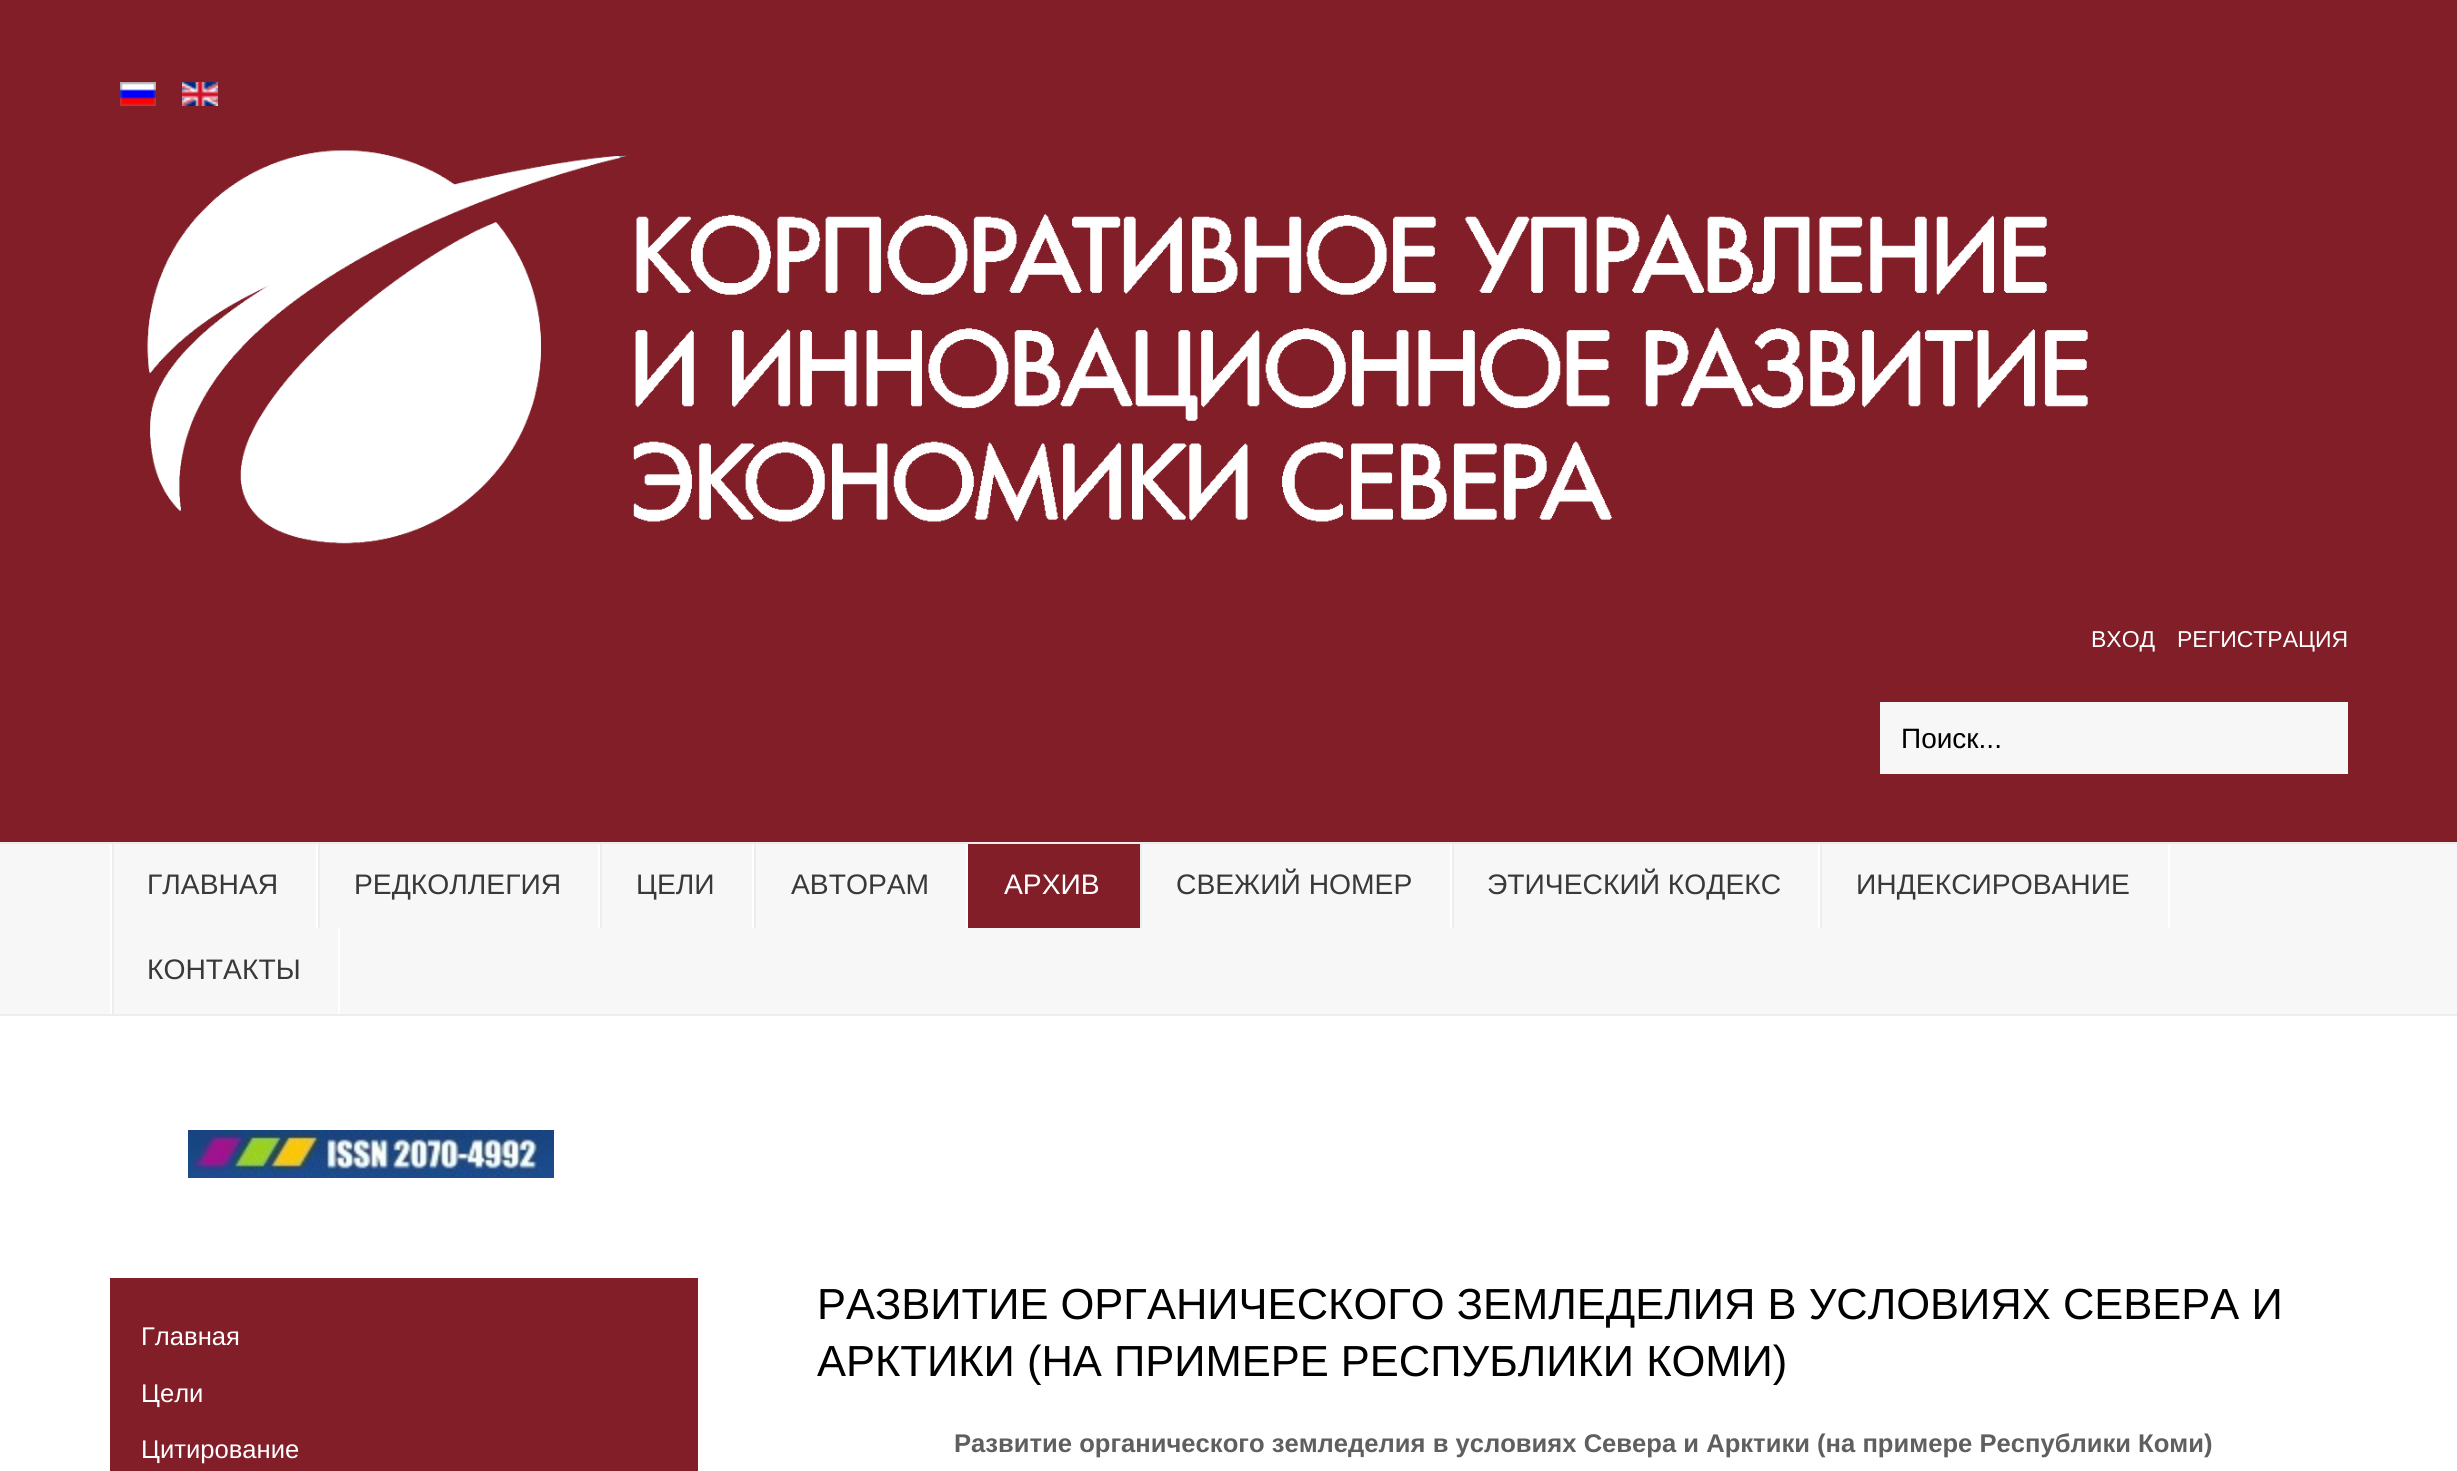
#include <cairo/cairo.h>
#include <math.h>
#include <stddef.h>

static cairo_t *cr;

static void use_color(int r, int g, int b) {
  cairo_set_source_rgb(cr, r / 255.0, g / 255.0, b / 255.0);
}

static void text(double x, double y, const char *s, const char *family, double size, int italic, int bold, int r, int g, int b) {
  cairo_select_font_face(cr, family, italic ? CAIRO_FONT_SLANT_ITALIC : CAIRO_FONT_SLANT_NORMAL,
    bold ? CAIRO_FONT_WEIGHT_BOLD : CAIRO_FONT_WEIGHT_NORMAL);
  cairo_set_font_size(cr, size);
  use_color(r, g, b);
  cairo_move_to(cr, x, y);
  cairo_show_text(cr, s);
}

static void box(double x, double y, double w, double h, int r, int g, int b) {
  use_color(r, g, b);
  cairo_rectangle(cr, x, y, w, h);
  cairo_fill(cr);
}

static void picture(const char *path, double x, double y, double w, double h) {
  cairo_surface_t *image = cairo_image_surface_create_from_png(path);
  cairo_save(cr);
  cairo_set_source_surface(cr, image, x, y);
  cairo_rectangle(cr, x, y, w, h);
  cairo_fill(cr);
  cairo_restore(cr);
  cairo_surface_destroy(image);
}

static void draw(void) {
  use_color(255, 255, 255);
  cairo_paint(cr);
  box(0, 0, 2457, 842, 130, 30, 40);
  picture("img_01.png", 120, 82, 36, 24);
  picture("img_02.png", 182, 82, 36, 24);
  picture("img_03.png", 147, 150, 1941, 394);
  box(1880, 702, 468, 72, 248, 247, 247);
  box(0, 844, 2457, 170, 248, 247, 247);
  box(0, 842, 2457, 2, 238, 237, 237);
  box(0, 1014, 2457, 2, 238, 237, 237);
  box(110, 844, 2, 170, 255, 255, 255);
  box(316, 844, 2, 84, 255, 255, 255);
  box(112, 844, 2, 170, 238, 237, 237);
  box(598, 844, 2, 84, 255, 255, 255);
  box(318, 844, 2, 84, 238, 237, 237);
  box(752, 844, 2, 84, 255, 255, 255);
  box(600, 844, 2, 84, 238, 237, 237);
  box(966, 844, 2, 84, 255, 255, 255);
  box(754, 844, 2, 84, 238, 237, 237);
  box(968, 844, 172, 84, 130, 30, 40);
  box(1450, 844, 2, 84, 255, 255, 255);
  box(1140, 844, 2, 84, 238, 237, 237);
  box(1818, 844, 2, 84, 255, 255, 255);
  box(1452, 844, 2, 84, 238, 237, 237);
  box(2168, 844, 2, 84, 255, 255, 255);
  box(1820, 844, 2, 84, 238, 237, 237);
  box(338, 928, 2, 86, 255, 255, 255);
  picture("img_04.png", 188, 1130, 366, 48);
  box(110, 1278, 588, 193, 130, 30, 40);
  text(2091, 647, "ВХОД", "Liberation Sans", 23, 0, 0, 255, 255, 255);
  text(2177, 647, "РЕГИСТРАЦИЯ", "Liberation Sans", 23, 0, 0, 255, 255, 255);
  text(1901, 748, "Поиск...", "Liberation Sans", 28, 0, 0, 0, 0, 0);
  text(147, 894, "ГЛАВНАЯ", "Liberation Sans", 28.25, 0, 0, 57, 57, 57);
  text(354, 894, "РЕДКОЛЛЕГИЯ", "Liberation Sans", 28.25, 0, 0, 57, 57, 57);
  text(636, 894, "ЦЕЛИ", "Liberation Sans", 28.25, 0, 0, 57, 57, 57);
  text(791, 894, "АВТОРАМ", "Liberation Sans", 28.25, 0, 0, 57, 57, 57);
  text(1004, 894, "АРХИВ", "Liberation Sans", 28.25, 0, 0, 255, 255, 255);
  text(1176, 894, "СВЕЖИЙ НОМЕР", "Liberation Sans", 28.25, 0, 0, 57, 57, 57);
  text(1487, 894, "ЭТИЧЕСКИЙ КОДЕКС", "Liberation Sans", 28.25, 0, 0, 57, 57, 57);
  text(1856, 894, "ИНДЕКСИРОВАНИЕ", "Liberation Sans", 28.25, 0, 0, 57, 57, 57);
  text(147, 979, "КОНТАКТЫ", "Liberation Sans", 28.25, 0, 0, 57, 57, 57);
  text(141, 1345, "Главная", "Liberation Sans", 25.6, 0, 0, 255, 255, 255);
  text(141, 1402, "Цели", "Liberation Sans", 25.6, 0, 0, 255, 255, 255);
  text(141, 1458, "Цитирование", "Liberation Sans", 25.6, 0, 0, 255, 255, 255);
  text(817, 1319, "РАЗВИТИЕ ОРГАНИЧЕСКОГО ЗЕМЛЕДЕЛИЯ В УСЛОВИЯХ СЕВЕРА И", "Liberation Sans", 43.5, 0, 0, 0, 0, 0);
  text(817, 1376, "АРКТИКИ (НА ПРИМЕРЕ РЕСПУБЛИКИ КОМИ)", "Liberation Sans", 43.5, 0, 0, 0, 0, 0);
  text(954, 1452, "Развитие органического земледелия в условиях Севера и Арктики (на примере Республики Коми)", "Liberation Sans", 25.6, 0, 1, 95, 95, 95);
}

int main(void) {
  cairo_surface_t *surface = cairo_image_surface_create(CAIRO_FORMAT_RGB24, 2457, 1471);
  cr = cairo_create(surface);
  cairo_font_options_t *options = cairo_font_options_create();
  cairo_font_options_set_hint_metrics(options, CAIRO_HINT_METRICS_OFF);
  cairo_font_options_set_hint_style(options, CAIRO_HINT_STYLE_NONE);
  cairo_set_font_options(cr, options);
  cairo_set_miter_limit(cr, 4);
  draw();
  cairo_surface_write_to_png(surface, "out.png");
  cairo_font_options_destroy(options);
  cairo_destroy(cr);
  cairo_surface_destroy(surface);
  return 0;
}
